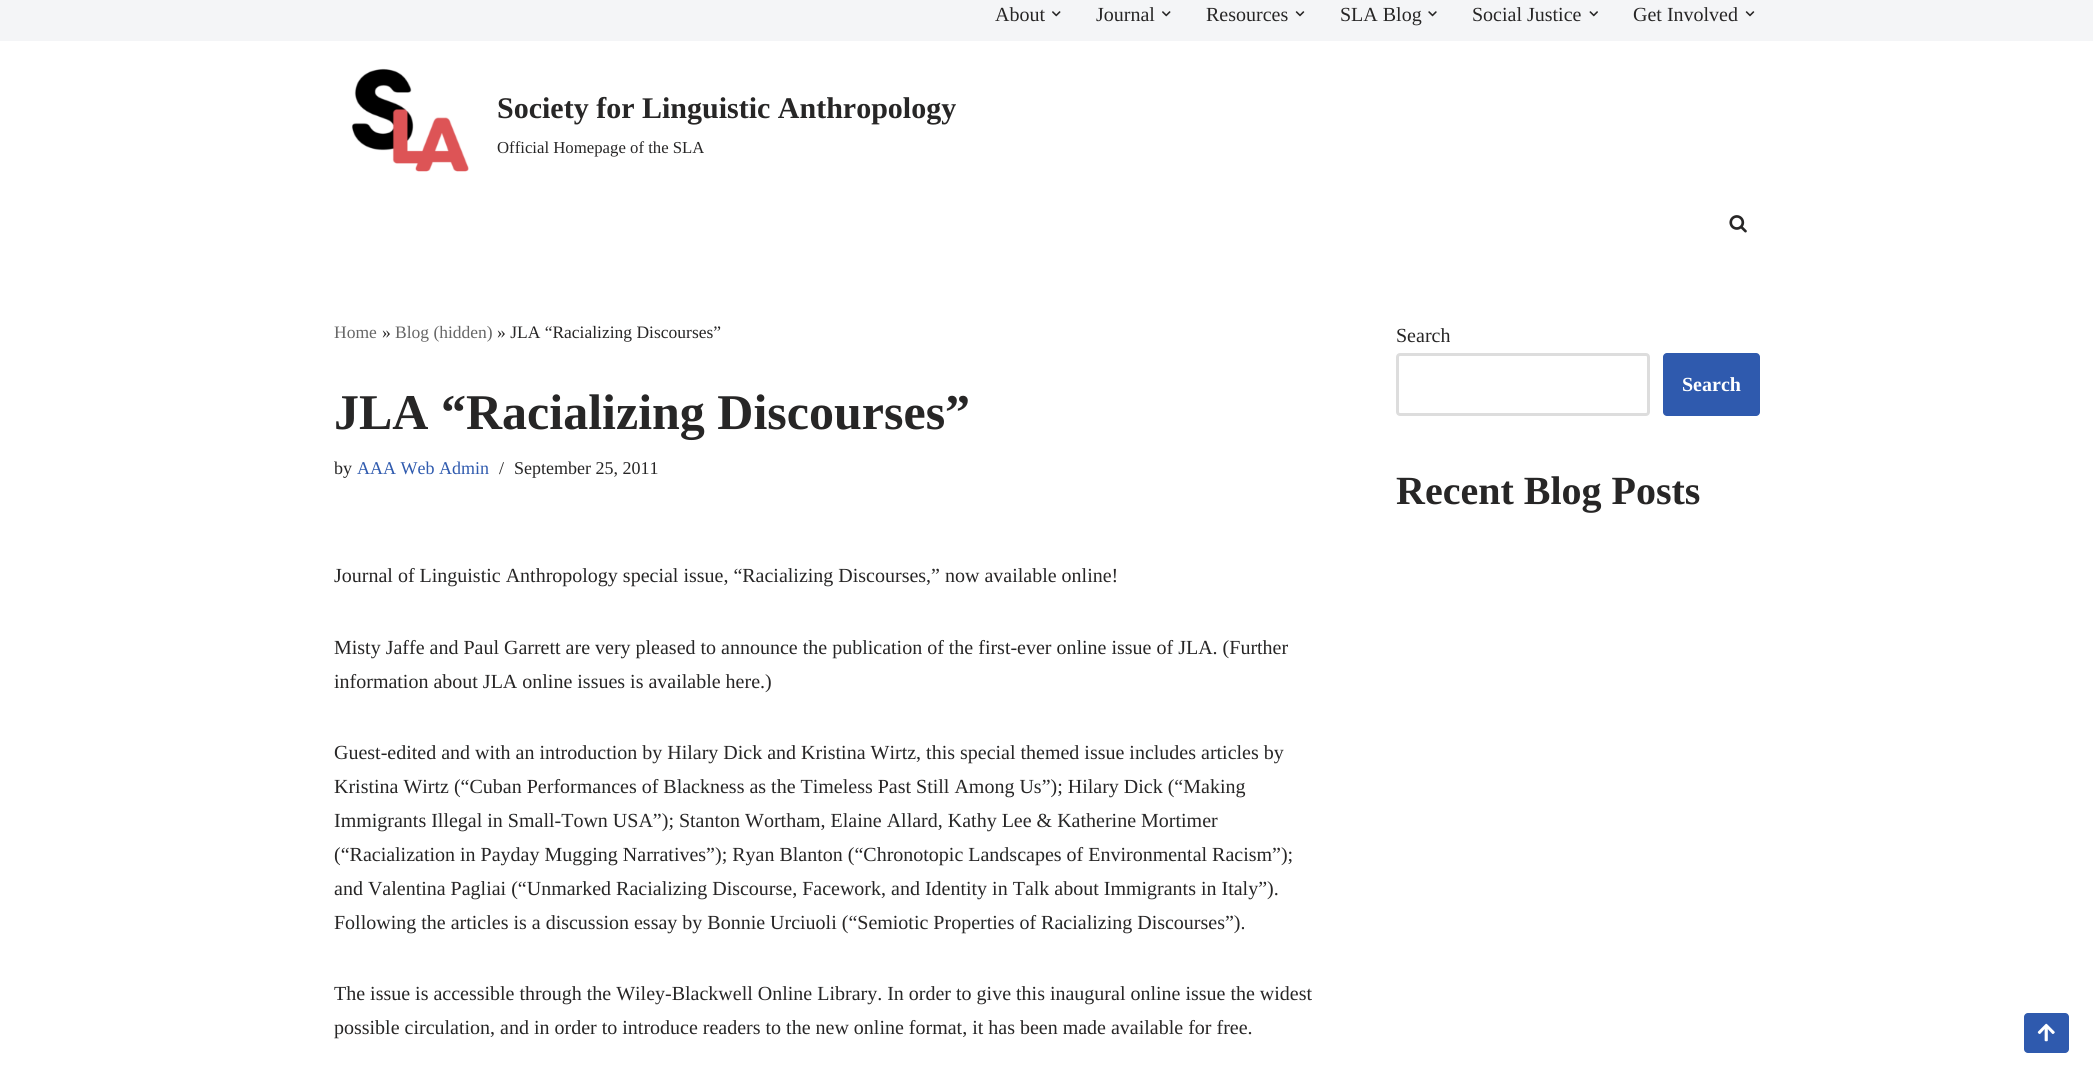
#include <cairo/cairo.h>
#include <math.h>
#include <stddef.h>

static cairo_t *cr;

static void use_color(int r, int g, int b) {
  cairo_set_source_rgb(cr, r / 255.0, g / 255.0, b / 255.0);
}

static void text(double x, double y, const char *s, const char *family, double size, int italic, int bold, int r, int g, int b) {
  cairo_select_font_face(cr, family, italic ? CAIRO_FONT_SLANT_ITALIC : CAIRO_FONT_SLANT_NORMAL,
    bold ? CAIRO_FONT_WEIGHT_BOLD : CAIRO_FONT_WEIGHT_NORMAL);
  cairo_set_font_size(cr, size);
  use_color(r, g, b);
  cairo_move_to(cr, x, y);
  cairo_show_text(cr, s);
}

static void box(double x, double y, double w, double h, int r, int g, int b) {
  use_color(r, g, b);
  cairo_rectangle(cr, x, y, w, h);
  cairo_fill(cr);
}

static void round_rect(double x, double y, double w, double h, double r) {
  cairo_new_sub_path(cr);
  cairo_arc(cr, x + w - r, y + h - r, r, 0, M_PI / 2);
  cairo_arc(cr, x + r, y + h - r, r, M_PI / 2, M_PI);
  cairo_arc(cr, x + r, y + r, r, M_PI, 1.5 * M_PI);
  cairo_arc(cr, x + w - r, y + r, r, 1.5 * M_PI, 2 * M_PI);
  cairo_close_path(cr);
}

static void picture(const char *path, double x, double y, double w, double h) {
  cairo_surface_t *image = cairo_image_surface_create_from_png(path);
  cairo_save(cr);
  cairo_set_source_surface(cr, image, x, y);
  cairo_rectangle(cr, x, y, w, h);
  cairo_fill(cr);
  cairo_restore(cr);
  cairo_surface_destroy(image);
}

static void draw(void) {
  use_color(255, 255, 255);
  cairo_paint(cr);
  box(0, 0, 2093, 41, 244, 245, 247);
  picture("img_01.png", 1052, 11, 9, 6);
  picture("img_01.png", 1162, 11, 9, 6);
  picture("img_02.png", 1295, 11, 10, 6);
  picture("img_03.png", 1428, 11, 9, 6);
  picture("img_04.png", 1589, 11, 9, 6);
  picture("img_02.png", 1745, 11, 10, 6);
  picture("img_05.png", 351, 68, 118, 104);
  picture("img_06.png", 1729, 215, 18, 18);
  round_rect(1397.5, 354.5, 251, 60, 2.5);
  use_color(221, 221, 221);
  cairo_set_line_width(cr, 3);
  cairo_stroke(cr);
  use_color(47, 90, 174);
  round_rect(1663, 353, 97, 63, 4);
  cairo_fill(cr);
  round_rect(2024, 1013, 45, 40, 4);
  cairo_fill(cr);
  picture("img_07.png", 2037, 1023, 18, 19);
  text(995, 21, "About", "Liberation Serif", 20, 0, 0, 39, 38, 38);
  text(1096, 21, "Journal", "Liberation Serif", 20, 0, 0, 39, 38, 38);
  text(1206, 21, "Resources", "Liberation Serif", 20, 0, 0, 39, 38, 38);
  text(1340, 21, "SLA Blog", "Liberation Serif", 20, 0, 0, 39, 38, 38);
  text(1472, 21, "Social Justice", "Liberation Serif", 20, 0, 0, 39, 38, 38);
  text(1633, 21, "Get Involved", "Liberation Serif", 20, 0, 0, 39, 38, 38);
  text(497, 118, "Society for Linguistic Anthropology", "Liberation Serif", 30, 0, 1, 39, 38, 38);
  text(497, 153, "Official Homepage of the SLA", "Liberation Serif", 16.75, 0, 0, 39, 38, 38);
  text(334, 338, "Home", "Liberation Serif", 17.5, 0, 0, 103, 103, 103);
  text(382, 338, "»", "Liberation Serif", 17.5, 0, 0, 39, 38, 38);
  text(395, 338, "Blog (hidden)", "Liberation Serif", 17.5, 0, 0, 103, 103, 103);
  text(497, 338, "» JLA “Racializing Discourses”", "Liberation Serif", 17.5, 0, 0, 39, 38, 38);
  text(334, 429, "JLA “Racializing Discourses”", "Liberation Serif", 50, 0, 1, 39, 38, 38);
  text(334, 474, "by", "Liberation Serif", 18, 0, 0, 39, 38, 38);
  text(357, 474, "AAA Web Admin", "Liberation Serif", 18, 0, 0, 47, 90, 174);
  text(499, 474, "/", "Liberation Serif", 18, 0, 0, 39, 38, 38);
  text(514, 474, "September 25, 2011", "Liberation Serif", 18, 0, 0, 39, 38, 38);
  text(334, 582, "Journal of Linguistic Anthropology special issue, “Racializing Discourses,” now available online!", "Liberation Serif", 20, 0, 0, 39, 38, 38);
  text(334, 654, "Misty Jaffe and Paul Garrett are very pleased to announce the publication of the first-ever online issue of JLA. (Further", "Liberation Serif", 20, 0, 0, 39, 38, 38);
  text(334, 688, "information about JLA online issues is available here.)", "Liberation Serif", 20, 0, 0, 39, 38, 38);
  text(334, 759, "Guest-edited and with an introduction by Hilary Dick and Kristina Wirtz, this special themed issue includes articles by", "Liberation Serif", 20, 0, 0, 39, 38, 38);
  text(334, 793, "Kristina Wirtz (“Cuban Performances of Blackness as the Timeless Past Still Among Us”); Hilary Dick (“Making", "Liberation Serif", 20, 0, 0, 39, 38, 38);
  text(334, 827, "Immigrants Illegal in Small-Town USA”); Stanton Wortham, Elaine Allard, Kathy Lee & Katherine Mortimer", "Liberation Serif", 20, 0, 0, 39, 38, 38);
  text(334, 861, "(“Racialization in Payday Mugging Narratives”); Ryan Blanton (“Chronotopic Landscapes of Environmental Racism”);", "Liberation Serif", 20, 0, 0, 39, 38, 38);
  text(334, 895, "and Valentina Pagliai (“Unmarked Racializing Discourse, Facework, and Identity in Talk about Immigrants in Italy”).", "Liberation Serif", 20, 0, 0, 39, 38, 38);
  text(334, 929, "Following the articles is a discussion essay by Bonnie Urciuoli (“Semiotic Properties of Racializing Discourses”).", "Liberation Serif", 20, 0, 0, 39, 38, 38);
  text(334, 1000, "The issue is accessible through the Wiley-Blackwell Online Library. In order to give this inaugural online issue the widest", "Liberation Serif", 20, 0, 0, 39, 38, 38);
  text(334, 1034, "possible circulation, and in order to introduce readers to the new online format, it has been made available for free.", "Liberation Serif", 20, 0, 0, 39, 38, 38);
  text(1396, 342, "Search", "Liberation Serif", 20, 0, 0, 39, 38, 38);
  text(1682, 391, "Search", "Liberation Serif", 20, 0, 1, 255, 255, 255);
  text(1396, 504, "Recent Blog Posts", "Liberation Serif", 40, 0, 1, 39, 38, 38);
}

int main(void) {
  cairo_surface_t *surface = cairo_image_surface_create(CAIRO_FORMAT_RGB24, 2093, 1090);
  cr = cairo_create(surface);
  cairo_font_options_t *options = cairo_font_options_create();
  cairo_font_options_set_hint_metrics(options, CAIRO_HINT_METRICS_OFF);
  cairo_font_options_set_hint_style(options, CAIRO_HINT_STYLE_NONE);
  cairo_set_font_options(cr, options);
  cairo_set_miter_limit(cr, 4);
  draw();
  cairo_surface_write_to_png(surface, "out.png");
  cairo_font_options_destroy(options);
  cairo_destroy(cr);
  cairo_surface_destroy(surface);
  return 0;
}
